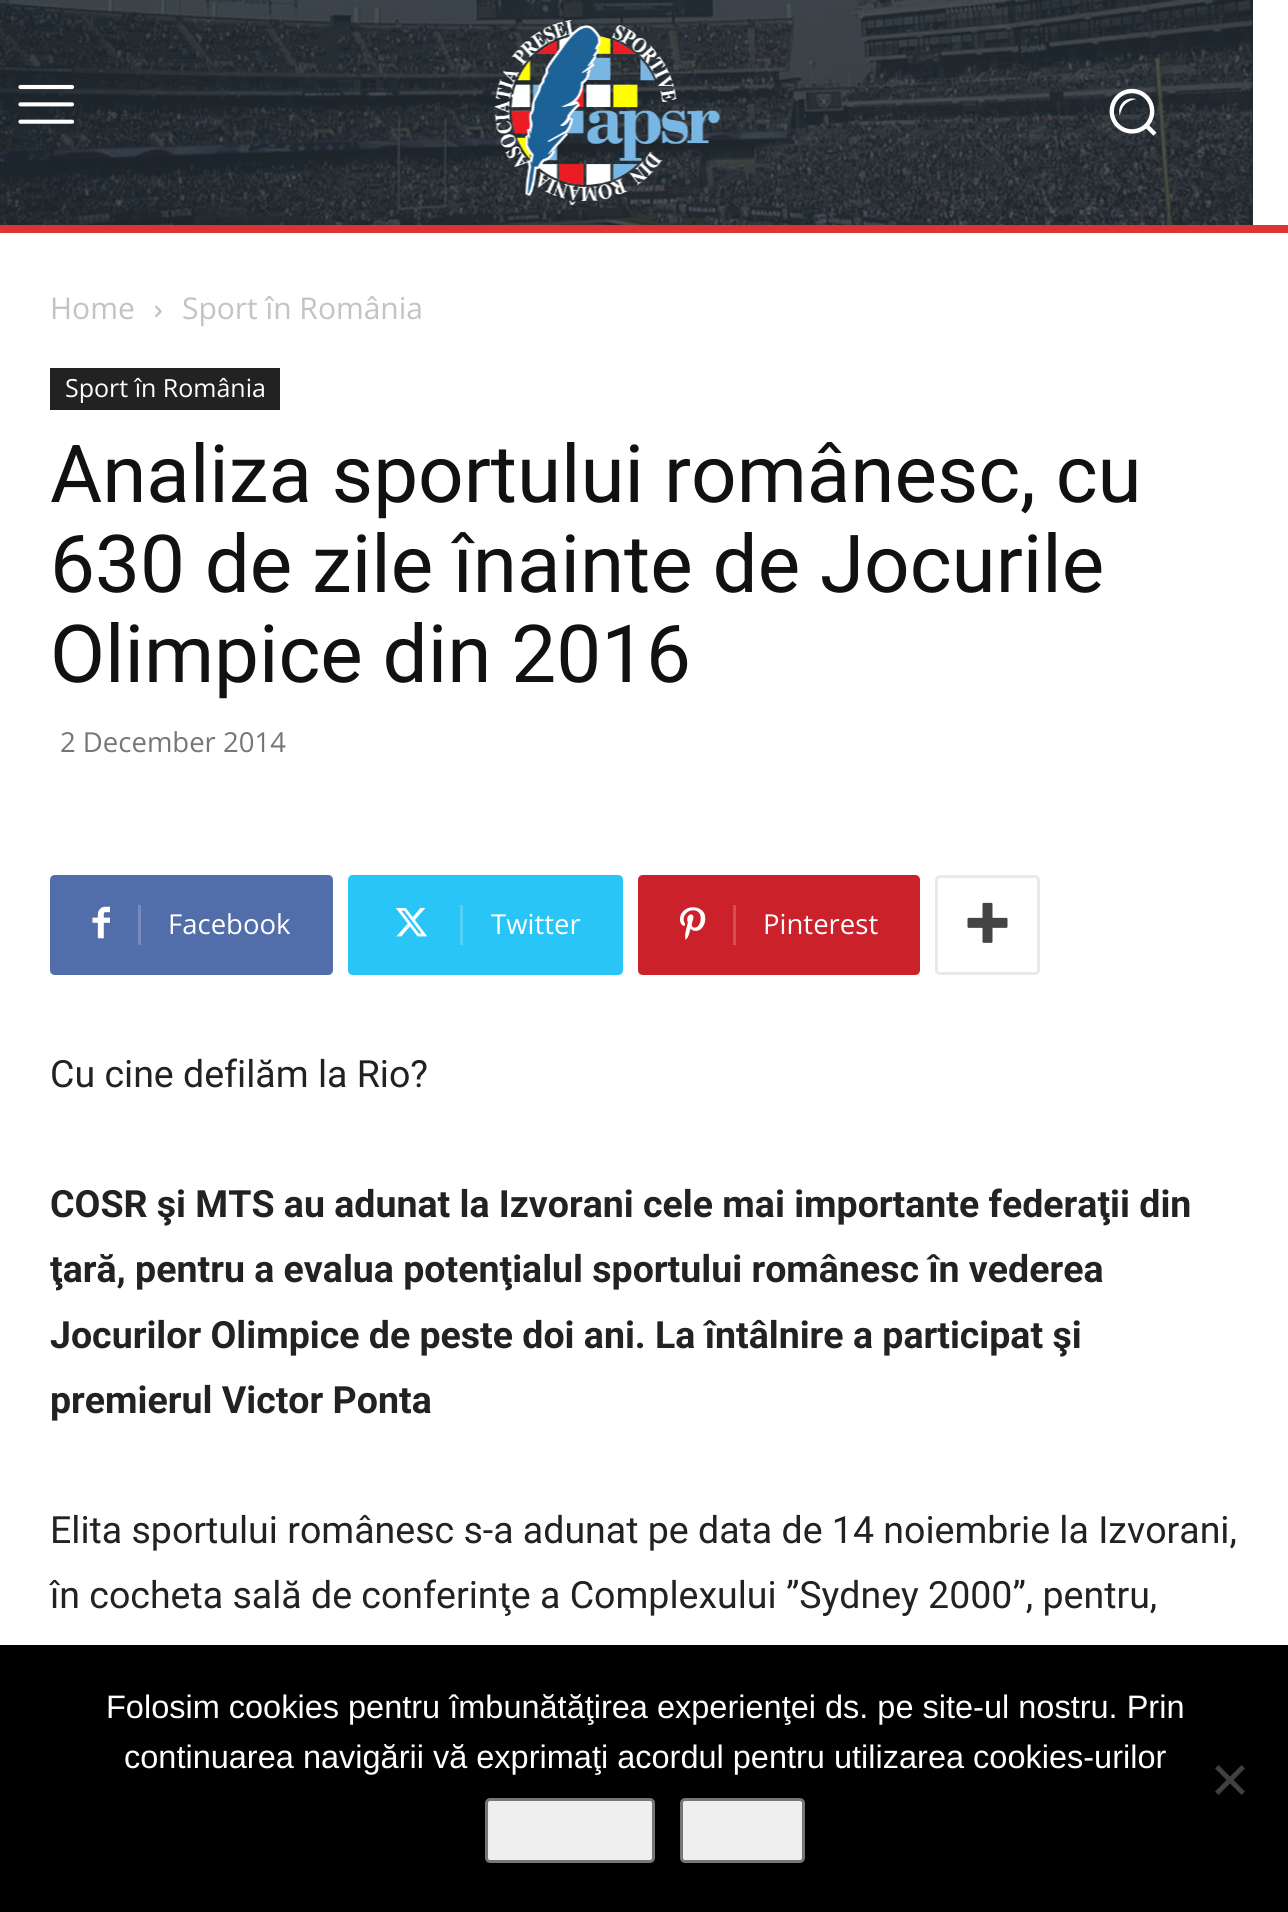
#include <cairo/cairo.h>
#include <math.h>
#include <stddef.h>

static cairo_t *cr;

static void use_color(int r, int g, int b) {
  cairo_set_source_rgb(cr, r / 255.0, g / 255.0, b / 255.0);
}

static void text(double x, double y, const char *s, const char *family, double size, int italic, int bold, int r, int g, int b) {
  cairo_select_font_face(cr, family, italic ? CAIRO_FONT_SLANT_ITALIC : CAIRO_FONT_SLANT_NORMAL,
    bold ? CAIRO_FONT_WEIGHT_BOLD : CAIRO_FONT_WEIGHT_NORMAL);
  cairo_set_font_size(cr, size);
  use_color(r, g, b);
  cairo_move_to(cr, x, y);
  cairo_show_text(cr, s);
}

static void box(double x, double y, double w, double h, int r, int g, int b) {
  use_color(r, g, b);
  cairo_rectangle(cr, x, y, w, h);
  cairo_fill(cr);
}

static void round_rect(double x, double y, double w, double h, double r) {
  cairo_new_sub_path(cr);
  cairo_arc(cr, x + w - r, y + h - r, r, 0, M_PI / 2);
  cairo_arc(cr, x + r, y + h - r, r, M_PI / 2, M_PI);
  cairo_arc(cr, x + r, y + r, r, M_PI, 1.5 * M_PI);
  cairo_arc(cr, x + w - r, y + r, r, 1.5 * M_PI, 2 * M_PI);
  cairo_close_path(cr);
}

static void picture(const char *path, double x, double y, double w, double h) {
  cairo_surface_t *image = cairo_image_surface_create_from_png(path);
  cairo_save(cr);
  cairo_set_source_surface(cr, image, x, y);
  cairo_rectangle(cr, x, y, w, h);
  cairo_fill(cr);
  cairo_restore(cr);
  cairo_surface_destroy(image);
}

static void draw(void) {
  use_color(255, 255, 255);
  cairo_paint(cr);
  box(0, 0, 1253, 225, 35, 45, 53);
  picture("img_01.png", 0, 0, 1253, 225);
  picture("img_02.png", 18, 84, 57, 40);
  picture("img_03.png", 494, 20, 226, 185);
  picture("img_04.png", 1109, 88, 48, 48);
  box(0, 225, 1288, 8, 221, 51, 51);
  picture("img_05.png", 155, 305, 7, 13);
  box(50, 368, 230, 42, 34, 34, 34);
  use_color(81, 110, 171);
  cairo_new_path(cr);
  cairo_move_to(cr, 138, 875);
  cairo_line_to(cr, 328, 875);
  cairo_curve_to(cr, 331, 875, 333, 877, 333, 880);
  cairo_line_to(cr, 333, 970);
  cairo_curve_to(cr, 333, 973, 331, 975, 328, 975);
  cairo_line_to(cr, 138, 975);
  cairo_close_path(cr);
  cairo_fill(cr);
  cairo_new_path(cr);
  cairo_move_to(cr, 55, 875);
  cairo_line_to(cr, 153, 875);
  cairo_line_to(cr, 153, 975);
  cairo_line_to(cr, 55, 975);
  cairo_curve_to(cr, 52, 975, 50, 973, 50, 970);
  cairo_line_to(cr, 50, 880);
  cairo_curve_to(cr, 50, 877, 52, 875, 55, 875);
  cairo_close_path(cr);
  cairo_fill(cr);
  picture("img_06.png", 92, 906, 18, 33);
  box(138, 905, 3, 40, 116, 139, 188);
  use_color(41, 197, 246);
  cairo_new_path(cr);
  cairo_move_to(cr, 460, 875);
  cairo_line_to(cr, 618, 875);
  cairo_curve_to(cr, 621, 875, 623, 877, 623, 880);
  cairo_line_to(cr, 623, 970);
  cairo_curve_to(cr, 623, 973, 621, 975, 618, 975);
  cairo_line_to(cr, 460, 975);
  cairo_close_path(cr);
  cairo_fill(cr);
  cairo_new_path(cr);
  cairo_move_to(cr, 353, 875);
  cairo_line_to(cr, 475, 875);
  cairo_line_to(cr, 475, 975);
  cairo_line_to(cr, 353, 975);
  cairo_curve_to(cr, 350, 975, 348, 973, 348, 970);
  cairo_line_to(cr, 348, 880);
  cairo_curve_to(cr, 348, 877, 350, 875, 353, 875);
  cairo_close_path(cr);
  cairo_fill(cr);
  picture("img_07.png", 396, 908, 32, 29);
  box(460, 905, 3, 40, 84, 209, 248);
  use_color(202, 33, 42);
  cairo_new_path(cr);
  cairo_move_to(cr, 733, 875);
  cairo_line_to(cr, 915, 875);
  cairo_curve_to(cr, 918, 875, 920, 877, 920, 880);
  cairo_line_to(cr, 920, 970);
  cairo_curve_to(cr, 920, 973, 918, 975, 915, 975);
  cairo_line_to(cr, 733, 975);
  cairo_close_path(cr);
  cairo_fill(cr);
  cairo_new_path(cr);
  cairo_move_to(cr, 643, 875);
  cairo_line_to(cr, 748, 875);
  cairo_line_to(cr, 748, 975);
  cairo_line_to(cr, 643, 975);
  cairo_curve_to(cr, 640, 975, 638, 973, 638, 970);
  cairo_line_to(cr, 638, 880);
  cairo_curve_to(cr, 638, 877, 640, 875, 643, 875);
  cairo_close_path(cr);
  cairo_fill(cr);
  picture("img_08.png", 680, 907, 26, 33);
  box(733, 905, 3, 40, 213, 77, 85);
  round_rect(936.5, 876.5, 102, 97, 3.5);
  use_color(233, 233, 233);
  cairo_set_line_width(cr, 3);
  cairo_stroke(cr);
  picture("img_09.png", 967, 902, 41, 41);
  box(0, 1645, 1288, 267, 0, 0, 0);
  use_color(64, 64, 64);
  cairo_new_path(cr);
  cairo_move_to(cr, 1241.5, 1765);
  cairo_line_to(cr, 1245, 1768.5);
  cairo_line_to(cr, 1218.5, 1795);
  cairo_line_to(cr, 1215, 1791.5);
  cairo_close_path(cr);
  cairo_fill(cr);
  cairo_new_path(cr);
  cairo_move_to(cr, 1215, 1768.5);
  cairo_line_to(cr, 1218.5, 1765);
  cairo_line_to(cr, 1245, 1791.5);
  cairo_line_to(cr, 1241.5, 1795);
  cairo_close_path(cr);
  cairo_fill(cr);
  use_color(239, 239, 239);
  round_rect(486.5, 1799.5, 167, 62, 3.5);
  cairo_fill_preserve(cr);
  use_color(118, 118, 118);
  cairo_stroke(cr);
  use_color(239, 239, 239);
  round_rect(681.5, 1799.5, 122, 62, 3.5);
  cairo_fill_preserve(cr);
  use_color(118, 118, 118);
  cairo_stroke(cr);
  text(50, 319, "Home", "Open Sans", 30, 0, 0, 195, 195, 195);
  text(182, 319, "Sport în România", "Open Sans", 30, 0, 0, 195, 195, 195);
  text(65, 397, "Sport în România", "Open Sans", 25, 0, 0, 255, 255, 255);
  text(50, 502, "Analiza sportului românesc, cu", "Roboto", 80, 0, 0, 17, 17, 17);
  text(50, 592, "630 de zile înainte de Jocurile", "Roboto", 80, 0, 0, 17, 17, 17);
  text(50, 682, "Olimpice din 2016", "Roboto", 80, 0, 0, 17, 17, 17);
  text(60, 752, "2 December 2014", "Open Sans", 27.5, 0, 0, 118, 118, 118);
  text(168, 934, "Facebook", "Open Sans", 27.5, 0, 0, 255, 255, 255);
  text(491, 934, "Twitter", "Open Sans", 27.5, 0, 0, 255, 255, 255);
  text(763, 934, "Pinterest", "Open Sans", 27.5, 0, 0, 255, 255, 255);
  text(50, 1087, "Cu cine defilăm la Rio?", "Roboto", 37.5, 0, 0, 34, 34, 34);
  text(50, 1217, "COSR şi MTS au adunat la Izvorani cele mai importante federaţii din", "Roboto", 37.5, 0, 1, 34, 34, 34);
  text(50, 1282, "ţară, pentru a evalua potenţialul sportului românesc în vederea", "Roboto", 37.5, 0, 1, 34, 34, 34);
  text(50, 1348, "Jocurilor Olimpice de peste doi ani. La întâlnire a participat şi", "Roboto", 37.5, 0, 1, 34, 34, 34);
  text(50, 1413, "premierul Victor Ponta", "Roboto", 37.5, 0, 1, 34, 34, 34);
  text(50, 1543, "Elita sportului românesc s-a adunat pe data de 14 noiembrie la Izvorani,", "Roboto", 37.5, 0, 0, 34, 34, 34);
  text(50, 1608, "în cocheta sală de conferinţe a Complexului ”Sydney 2000”, pentru,", "Roboto", 37.5, 0, 0, 34, 34, 34);
  text(106, 1718, "Folosim cookies pentru îmbunătăţirea experienţei ds. pe site-ul nostru. Prin", "Liberation Sans", 32.5, 0, 0, 255, 255, 255);
  text(124, 1768, "continuarea navigării vă exprimaţi acordul pentru utilizarea cookies-urilor", "Liberation Sans", 32.5, 0, 0, 255, 255, 255);
}

int main(void) {
  cairo_surface_t *surface = cairo_image_surface_create(CAIRO_FORMAT_RGB24, 1288, 1912);
  cr = cairo_create(surface);
  cairo_font_options_t *options = cairo_font_options_create();
  cairo_font_options_set_hint_metrics(options, CAIRO_HINT_METRICS_OFF);
  cairo_font_options_set_hint_style(options, CAIRO_HINT_STYLE_NONE);
  cairo_set_font_options(cr, options);
  cairo_set_miter_limit(cr, 4);
  draw();
  cairo_surface_write_to_png(surface, "out.png");
  cairo_font_options_destroy(options);
  cairo_destroy(cr);
  cairo_surface_destroy(surface);
  return 0;
}
